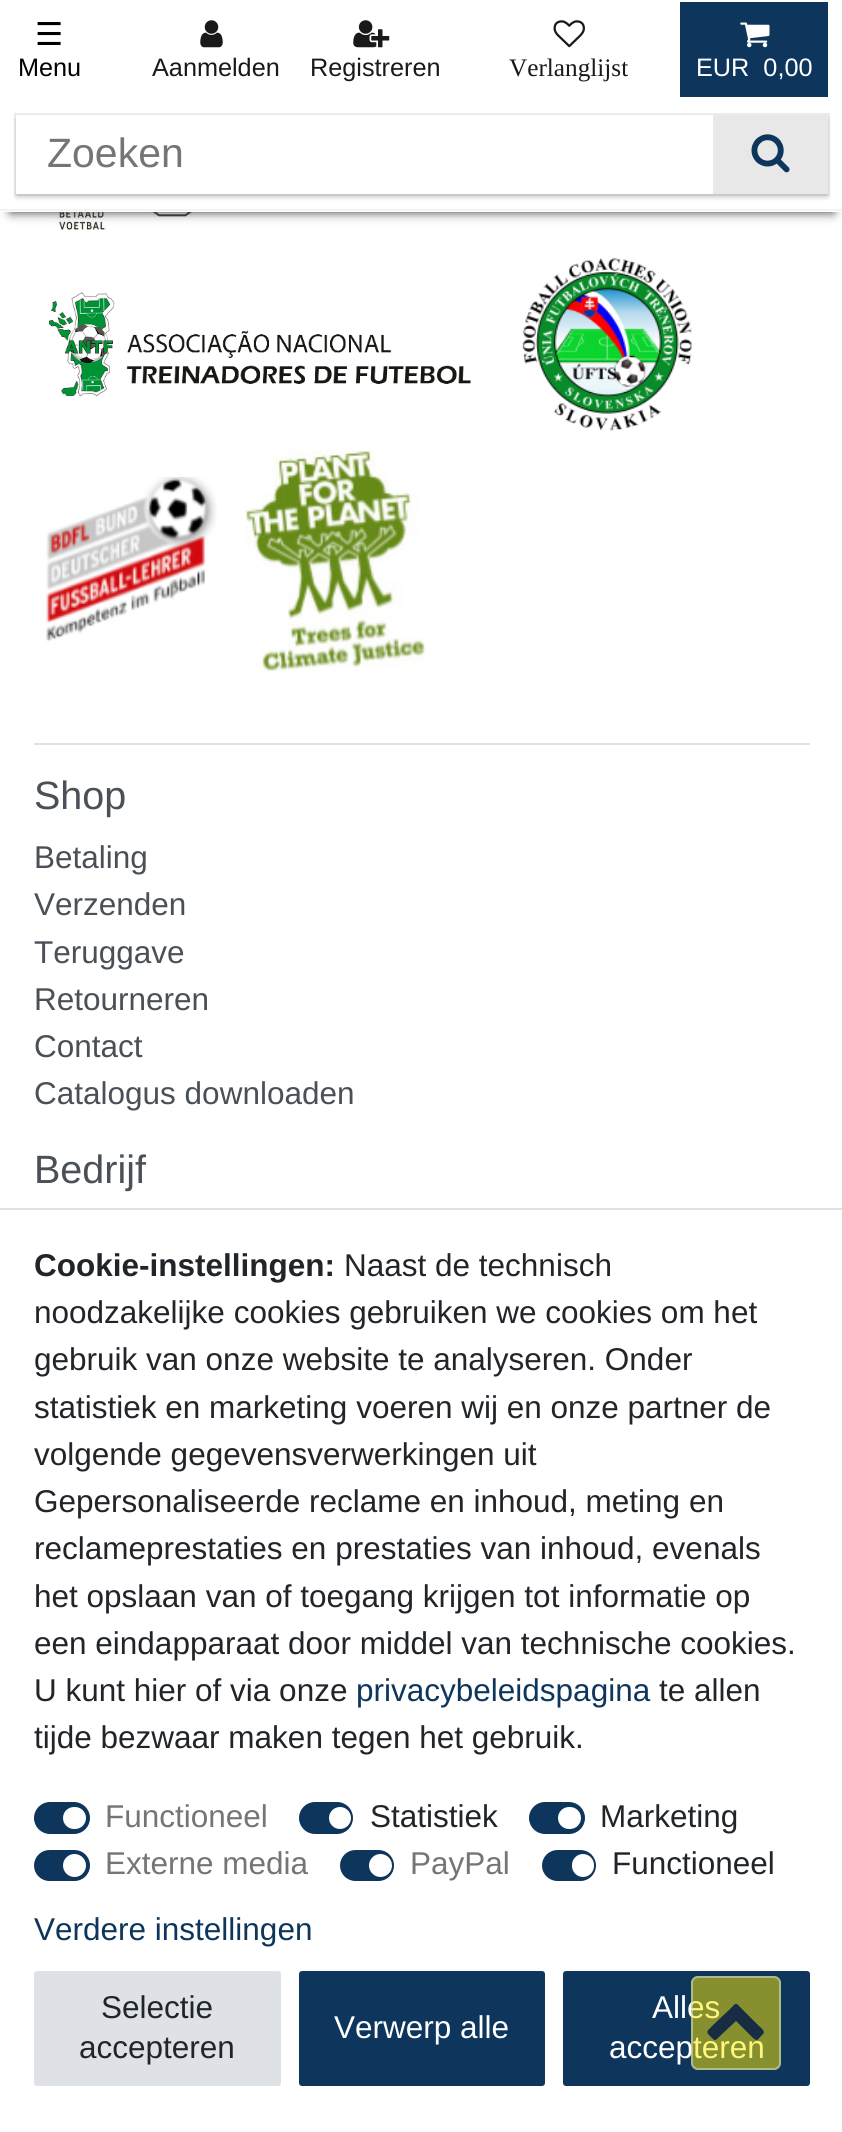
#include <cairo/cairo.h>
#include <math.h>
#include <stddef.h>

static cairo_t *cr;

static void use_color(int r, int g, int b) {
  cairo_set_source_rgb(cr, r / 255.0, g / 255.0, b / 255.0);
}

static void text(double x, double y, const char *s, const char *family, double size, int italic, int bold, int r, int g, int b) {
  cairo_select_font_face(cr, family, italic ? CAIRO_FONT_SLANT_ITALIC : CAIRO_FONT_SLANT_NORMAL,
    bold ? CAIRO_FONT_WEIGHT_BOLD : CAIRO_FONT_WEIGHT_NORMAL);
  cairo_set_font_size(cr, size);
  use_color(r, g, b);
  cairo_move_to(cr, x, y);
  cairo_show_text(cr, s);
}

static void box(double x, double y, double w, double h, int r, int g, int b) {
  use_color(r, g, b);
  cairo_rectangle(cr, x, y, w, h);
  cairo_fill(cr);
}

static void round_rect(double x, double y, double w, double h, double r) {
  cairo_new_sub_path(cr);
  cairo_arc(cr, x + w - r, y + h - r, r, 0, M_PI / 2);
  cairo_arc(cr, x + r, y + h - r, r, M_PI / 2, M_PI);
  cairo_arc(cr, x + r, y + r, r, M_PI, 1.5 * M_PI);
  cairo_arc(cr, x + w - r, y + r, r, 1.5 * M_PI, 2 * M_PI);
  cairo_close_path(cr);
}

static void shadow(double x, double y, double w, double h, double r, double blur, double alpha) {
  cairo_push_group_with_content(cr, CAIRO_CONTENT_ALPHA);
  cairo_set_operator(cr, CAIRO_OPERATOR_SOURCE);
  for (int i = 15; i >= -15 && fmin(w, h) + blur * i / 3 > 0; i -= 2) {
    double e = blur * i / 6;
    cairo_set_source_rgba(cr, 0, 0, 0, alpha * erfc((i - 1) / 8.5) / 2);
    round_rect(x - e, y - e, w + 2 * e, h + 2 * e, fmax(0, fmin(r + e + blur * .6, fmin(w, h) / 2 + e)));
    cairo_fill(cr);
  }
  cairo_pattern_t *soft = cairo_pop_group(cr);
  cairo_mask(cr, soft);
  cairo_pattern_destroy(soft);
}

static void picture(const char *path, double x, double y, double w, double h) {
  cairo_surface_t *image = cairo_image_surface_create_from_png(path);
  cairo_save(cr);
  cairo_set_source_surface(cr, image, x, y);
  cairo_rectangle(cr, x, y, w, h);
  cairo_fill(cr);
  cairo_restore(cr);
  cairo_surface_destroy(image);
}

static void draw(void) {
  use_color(255, 255, 255);
  cairo_paint(cr);
  picture("img_06.png", 43, 212, 176, 18);
  use_color(51, 51, 51);
  shadow(11, 23, 822, 189, 0, 5.5, 1);
  box(0, 11, 842, 201, 255, 255, 255);
  box(0, 209, 842, 2, 243, 243, 243);
  picture("img_01.png", 200, 20, 23, 28);
  picture("img_02.png", 353, 20, 37, 28);
  picture("img_03.png", 553, 20, 32, 28);
  box(680, 2, 148, 95, 14, 53, 92);
  picture("img_04.png", 740, 22, 30, 26);
  cairo_rectangle(cr, 15, 114, 814, 81);
  use_color(235, 235, 235);
  cairo_stroke(cr);
  use_color(0, 0, 0);
  shadow(16, 119, 812, 79, 0, 2, 0.16);
  box(16, 116, 697, 78, 255, 255, 255);
  box(713, 115, 115, 79, 232, 232, 232);
  picture("img_05.png", 751, 134, 39, 39);
  picture("img_07.png", 49, 292, 422, 105);
  picture("img_08.png", 522, 258, 171, 173);
  picture("img_09.png", 46, 477, 171, 165);
  picture("img_10.png", 245, 450, 181, 221);
  box(34, 743, 776, 2, 222, 226, 230);
  box(0, 1208, 842, 2, 222, 226, 230);
  use_color(14, 53, 92);
  round_rect(35, 1803, 54, 30, 15);
  cairo_fill_preserve(cr);
  cairo_stroke(cr);
  use_color(255, 255, 255);
  round_rect(63, 1807, 23, 22, 11);
  cairo_fill(cr);
  use_color(14, 53, 92);
  round_rect(300, 1803, 52, 30, 15);
  cairo_fill_preserve(cr);
  cairo_stroke(cr);
  use_color(255, 255, 255);
  cairo_arc(cr, 340, 1818, 11, 0, 2 * M_PI);
  cairo_fill(cr);
  use_color(14, 53, 92);
  round_rect(530, 1803, 54, 30, 15);
  cairo_fill_preserve(cr);
  cairo_stroke(cr);
  use_color(255, 255, 255);
  round_rect(558, 1807, 23, 22, 11);
  cairo_fill(cr);
  use_color(14, 53, 92);
  round_rect(35, 1851, 54, 29, 14.5);
  cairo_fill_preserve(cr);
  cairo_stroke(cr);
  use_color(255, 255, 255);
  cairo_arc(cr, 74.5, 1865.5, 11.5, 0, 2 * M_PI);
  cairo_fill(cr);
  use_color(14, 53, 92);
  round_rect(341, 1851, 52, 29, 14.5);
  cairo_fill_preserve(cr);
  cairo_stroke(cr);
  use_color(255, 255, 255);
  cairo_arc(cr, 380.5, 1865.5, 11.5, 0, 2 * M_PI);
  cairo_fill(cr);
  use_color(14, 53, 92);
  round_rect(543, 1851, 52, 29, 14.5);
  cairo_fill_preserve(cr);
  cairo_stroke(cr);
  use_color(255, 255, 255);
  round_rect(572, 1854, 22, 23, 11);
  cairo_fill(cr);
  use_color(222, 226, 230);
  round_rect(35, 1972, 245, 113, 2);
  cairo_fill_preserve(cr);
  cairo_stroke(cr);
  use_color(14, 53, 92);
  round_rect(300, 1972, 244, 113, 2);
  cairo_fill_preserve(cr);
  cairo_stroke(cr);
  round_rect(564, 1972, 245, 113, 2);
  cairo_fill_preserve(cr);
  cairo_stroke(cr);
  text(35, 45, "☰", "DejaVu Sans", 31.5, 0, 0, 0, 0, 0);
  text(18, 76, "Menu", "Liberation Sans", 25.25, 0, 0, 0, 0, 0);
  text(152, 76, "Aanmelden", "Liberation Sans", 25.25, 0, 0, 25, 25, 25);
  text(310, 76, "Registreren", "Liberation Sans", 25.25, 0, 0, 25, 25, 25);
  text(509, 76, "Verlanglijst", "Liberation Serif", 25.25, 0, 0, 25, 25, 25);
  text(696, 76, "EUR  0,00", "Liberation Sans", 25.25, 0, 0, 255, 255, 255);
  text(47, 167, "Zoeken", "Liberation Sans", 41, 0, 0, 117, 117, 117);
  text(34, 809, "Shop", "Liberation Sans", 39.5, 0, 0, 73, 80, 87);
  text(34, 868, "Betaling", "Liberation Sans", 31.5, 0, 0, 73, 80, 87);
  text(34, 915, "Verzenden", "Liberation Sans", 31.5, 0, 0, 73, 80, 87);
  text(34, 963, "Teruggave", "Liberation Sans", 31.5, 0, 0, 73, 80, 87);
  text(34, 1010, "Retourneren", "Liberation Sans", 31.5, 0, 0, 73, 80, 87);
  text(34, 1057, "Contact", "Liberation Sans", 31.5, 0, 0, 73, 80, 87);
  text(34, 1104, "Catalogus downloaden", "Liberation Sans", 31.5, 0, 0, 73, 80, 87);
  text(34, 1183, "Bedrijf", "Liberation Sans", 39.5, 0, 0, 73, 80, 87);
  text(34, 1276, "Cookie-instellingen:", "Liberation Sans", 31.5, 0, 1, 33, 37, 41);
  text(344, 1276, "Naast de technisch", "Liberation Sans", 31.5, 0, 0, 33, 37, 41);
  text(34, 1323, "noodzakelijke cookies gebruiken we cookies om het", "Liberation Sans", 31.5, 0, 0, 33, 37, 41);
  text(34, 1370, "gebruik van onze website te analyseren. Onder", "Liberation Sans", 31.5, 0, 0, 33, 37, 41);
  text(34, 1418, "statistiek en marketing voeren wij en onze partner de", "Liberation Sans", 31.5, 0, 0, 33, 37, 41);
  text(34, 1465, "volgende gegevensverwerkingen uit", "Liberation Sans", 31.5, 0, 0, 33, 37, 41);
  text(34, 1512, "Gepersonaliseerde reclame en inhoud, meting en", "Liberation Sans", 31.5, 0, 0, 33, 37, 41);
  text(34, 1559, "reclameprestaties en prestaties van inhoud, evenals", "Liberation Sans", 31.5, 0, 0, 33, 37, 41);
  text(34, 1607, "het opslaan van of toegang krijgen tot informatie op", "Liberation Sans", 31.5, 0, 0, 33, 37, 41);
  text(34, 1654, "een eindapparaat door middel van technische cookies.", "Liberation Sans", 31.5, 0, 0, 33, 37, 41);
  text(34, 1701, "U kunt hier of via onze", "Liberation Sans", 31.5, 0, 0, 33, 37, 41);
  text(356, 1701, "privacybeleidspagina", "Liberation Sans", 31.5, 0, 0, 14, 53, 92);
  text(659, 1701, "te allen", "Liberation Sans", 31.5, 0, 0, 33, 37, 41);
  text(34, 1748, "tijde bezwaar maken tegen het gebruik.", "Liberation Sans", 31.5, 0, 0, 33, 37, 41);
  text(105, 1827, "Functioneel", "Liberation Sans", 31.5, 0, 0, 117, 117, 117);
  text(370, 1827, "Statistiek", "Liberation Sans", 31.5, 0, 0, 33, 37, 41);
  text(600, 1827, "Marketing", "Liberation Sans", 31.5, 0, 0, 33, 37, 41);
  text(105, 1874, "Externe media", "Liberation Sans", 31.5, 0, 0, 117, 117, 117);
  text(410, 1874, "PayPal", "Liberation Sans", 31.5, 0, 0, 117, 117, 117);
  text(612, 1874, "Functioneel", "Liberation Sans", 31.5, 0, 0, 33, 37, 41);
  text(34, 1940, "Verdere instellingen", "Liberation Sans", 31.5, 0, 0, 14, 53, 92);
  text(101, 2018, "Selectie", "Liberation Sans", 31.5, 0, 0, 33, 37, 41);
  text(79, 2058, "accepteren", "Liberation Sans", 31.5, 0, 0, 33, 37, 41);
  text(334, 2038, "Verwerp alle", "Liberation Sans", 31.5, 0, 0, 255, 255, 255);
  text(652, 2018, "Alles", "Liberation Sans", 31.5, 0, 0, 255, 255, 255);
  text(609, 2058, "accepteren", "Liberation Sans", 31.5, 0, 0, 255, 255, 255);
  cairo_set_source_rgba(cr, 1, 0.929, 0, 0.5);
  round_rect(691, 1976, 90, 94, 7);
  cairo_fill(cr);
  round_rect(692, 1977, 88, 92, 6);
  cairo_set_source_rgba(cr, 0.871, 0.886, 0.902, 0.5);
  cairo_stroke(cr);
  use_color(24, 45, 67);
  cairo_new_path(cr);
  cairo_move_to(cr, 763, 2034);
  cairo_curve_to(cr, 757, 2040, 758, 2043, 751, 2036);
  cairo_line_to(cr, 736, 2021);
  cairo_line_to(cr, 720, 2036);
  cairo_curve_to(cr, 714, 2042, 715, 2041, 709, 2035);
  cairo_curve_to(cr, 705, 2031, 709, 2030, 712, 2026);
  cairo_line_to(cr, 730, 2009);
  cairo_curve_to(cr, 737, 2002, 735, 2002, 742, 2009);
  cairo_line_to(cr, 759, 2026);
  cairo_curve_to(cr, 760, 2027, 766, 2031, 763, 2034);
  cairo_close_path(cr);
  cairo_fill(cr);
}

int main(void) {
  cairo_surface_t *surface = cairo_image_surface_create(CAIRO_FORMAT_RGB24, 842, 2132);
  cr = cairo_create(surface);
  cairo_font_options_t *options = cairo_font_options_create();
  cairo_font_options_set_hint_metrics(options, CAIRO_HINT_METRICS_OFF);
  cairo_font_options_set_hint_style(options, CAIRO_HINT_STYLE_NONE);
  cairo_set_font_options(cr, options);
  cairo_set_miter_limit(cr, 4);
  draw();
  cairo_surface_write_to_png(surface, "out.png");
  cairo_font_options_destroy(options);
  cairo_destroy(cr);
  cairo_surface_destroy(surface);
  return 0;
}
